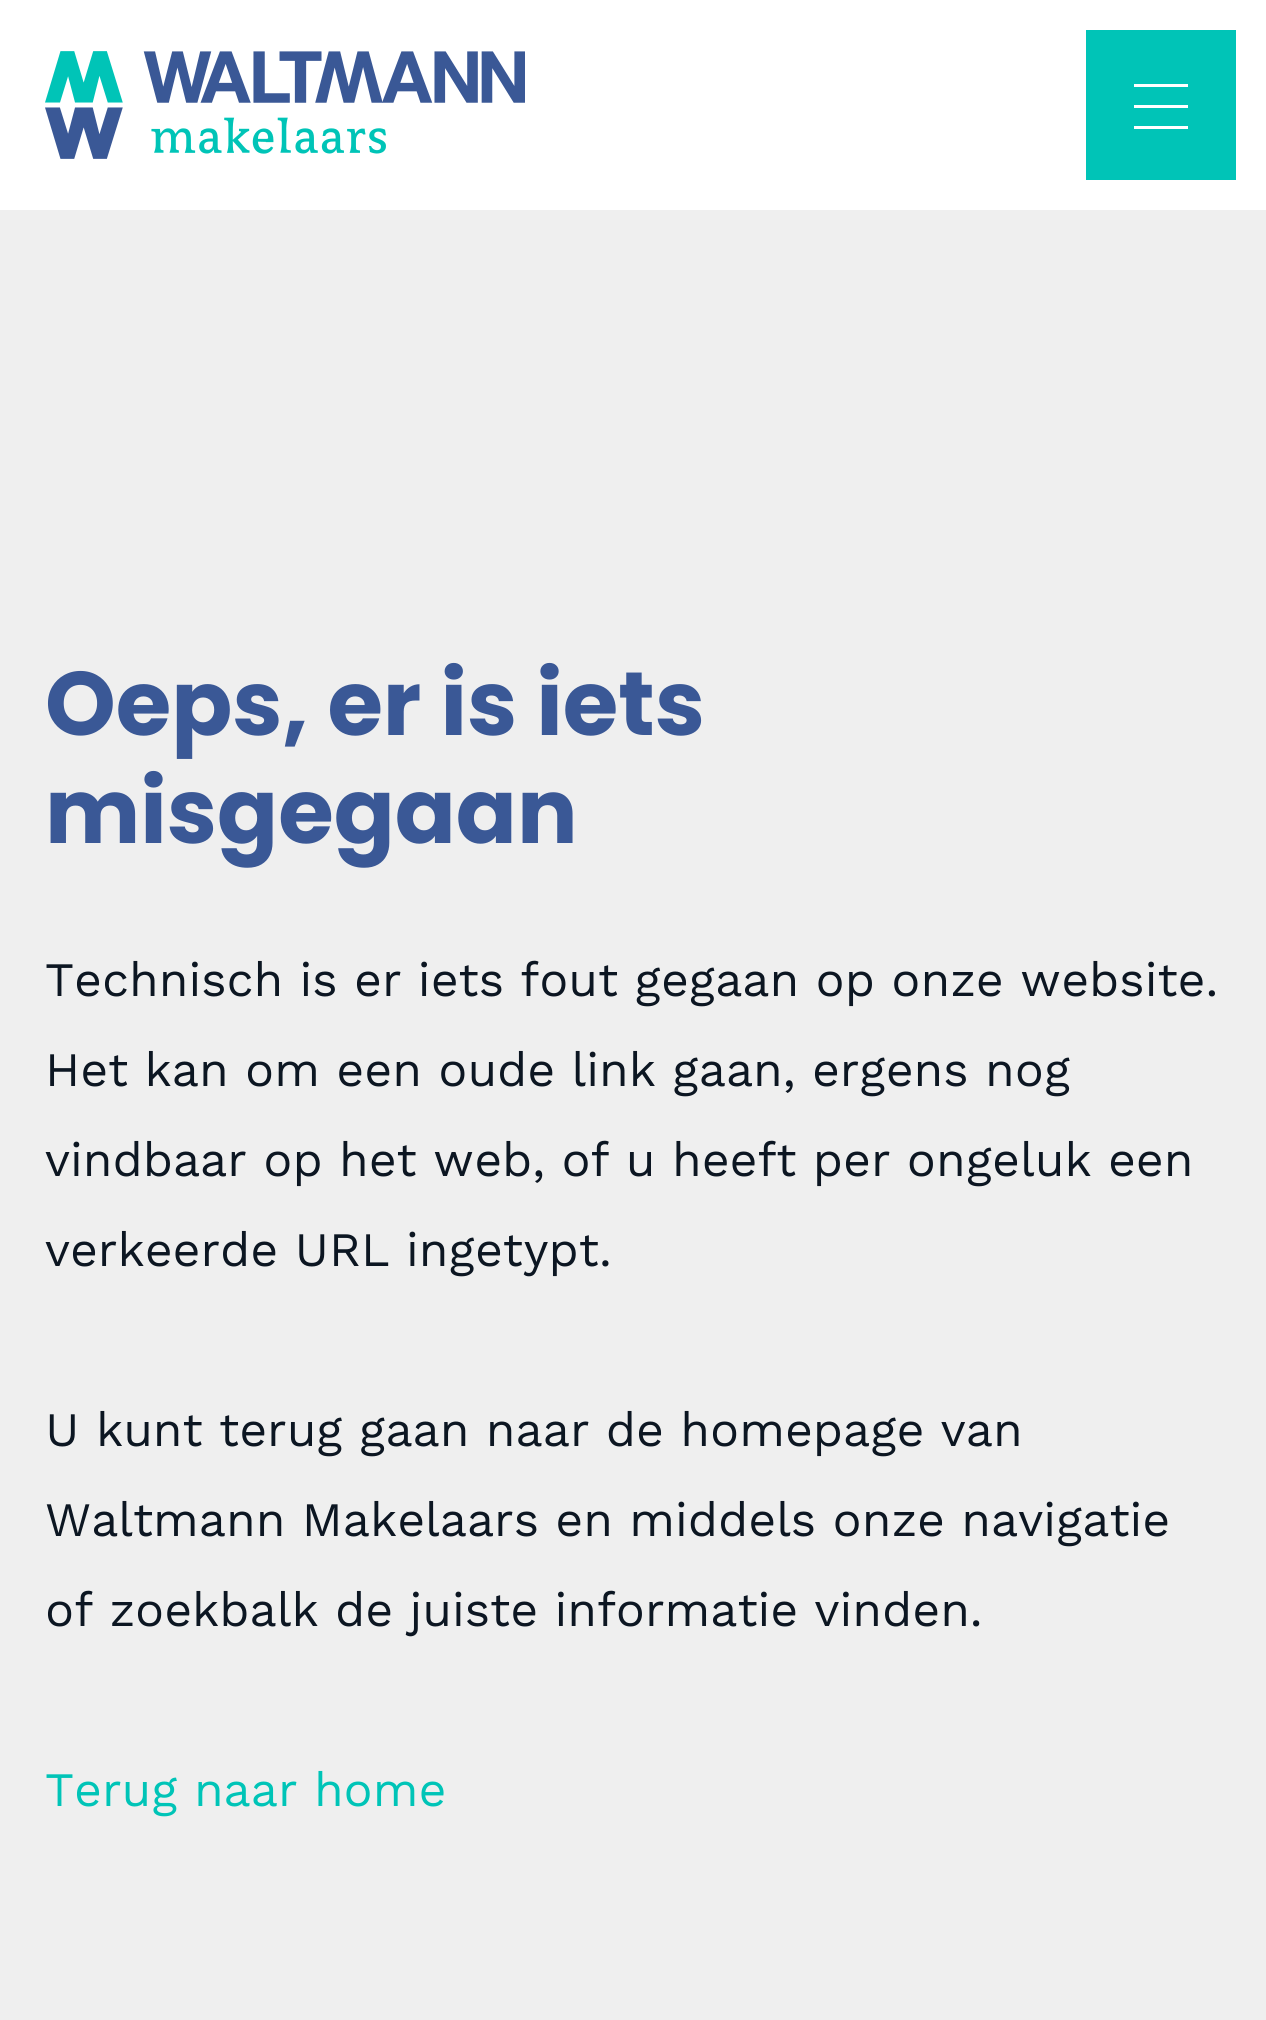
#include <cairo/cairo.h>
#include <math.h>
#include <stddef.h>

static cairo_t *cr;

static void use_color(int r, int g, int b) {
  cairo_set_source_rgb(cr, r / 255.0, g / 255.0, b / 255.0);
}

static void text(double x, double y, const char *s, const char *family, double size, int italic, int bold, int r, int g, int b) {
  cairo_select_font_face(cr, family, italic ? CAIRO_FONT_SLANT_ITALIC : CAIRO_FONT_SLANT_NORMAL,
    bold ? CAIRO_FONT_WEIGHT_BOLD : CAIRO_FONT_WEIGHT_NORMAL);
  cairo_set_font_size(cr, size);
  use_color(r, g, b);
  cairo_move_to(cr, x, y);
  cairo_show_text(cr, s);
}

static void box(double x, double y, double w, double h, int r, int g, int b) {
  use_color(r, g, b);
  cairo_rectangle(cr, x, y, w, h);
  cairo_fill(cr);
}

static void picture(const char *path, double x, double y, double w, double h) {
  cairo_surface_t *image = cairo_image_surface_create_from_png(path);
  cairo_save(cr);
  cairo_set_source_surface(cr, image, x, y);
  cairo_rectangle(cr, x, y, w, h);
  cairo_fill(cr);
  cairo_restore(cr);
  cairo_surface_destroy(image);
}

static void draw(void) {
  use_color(239, 239, 239);
  cairo_paint(cr);
  box(0, 0, 1266, 210, 255, 255, 255);
  picture("img_01.png", 45, 51, 480, 108);
  box(1086, 30, 150, 150, 0, 196, 183);
  box(1134, 84, 54, 3, 255, 255, 255);
  box(1134, 105, 54, 3, 255, 255, 255);
  box(1134, 126, 54, 3, 255, 255, 255);
  text(45, 735, "Oeps, er is iets", "Poppins", 90, 0, 1, 58, 88, 150);
  text(45, 843, "misgegaan", "Poppins", 90, 0, 1, 58, 88, 150);
  text(45, 996, "Technisch is er iets fout gegaan op onze website.", "Work Sans", 48, 0, 0, 12, 22, 34);
  text(45, 1086, "Het kan om een oude link gaan, ergens nog", "Work Sans", 48, 0, 0, 12, 22, 34);
  text(45, 1176, "vindbaar op het web, of u heeft per ongeluk een", "Work Sans", 48, 0, 0, 12, 22, 34);
  text(45, 1266, "verkeerde URL ingetypt.", "Work Sans", 48, 0, 0, 12, 22, 34);
  text(45, 1446, "U kunt terug gaan naar de homepage van", "Work Sans", 48, 0, 0, 12, 22, 34);
  text(45, 1536, "Waltmann Makelaars en middels onze navigatie", "Work Sans", 48, 0, 0, 12, 22, 34);
  text(45, 1626, "of zoekbalk de juiste informatie vinden.", "Work Sans", 48, 0, 0, 12, 22, 34);
  text(45, 1806, "Terug naar home", "Work Sans", 48, 0, 0, 0, 196, 183);
}

int main(void) {
  cairo_surface_t *surface = cairo_image_surface_create(CAIRO_FORMAT_RGB24, 1266, 2020);
  cr = cairo_create(surface);
  cairo_font_options_t *options = cairo_font_options_create();
  cairo_font_options_set_hint_metrics(options, CAIRO_HINT_METRICS_OFF);
  cairo_font_options_set_hint_style(options, CAIRO_HINT_STYLE_NONE);
  cairo_set_font_options(cr, options);
  cairo_set_miter_limit(cr, 4);
  draw();
  cairo_surface_write_to_png(surface, "out.png");
  cairo_font_options_destroy(options);
  cairo_destroy(cr);
  cairo_surface_destroy(surface);
  return 0;
}
